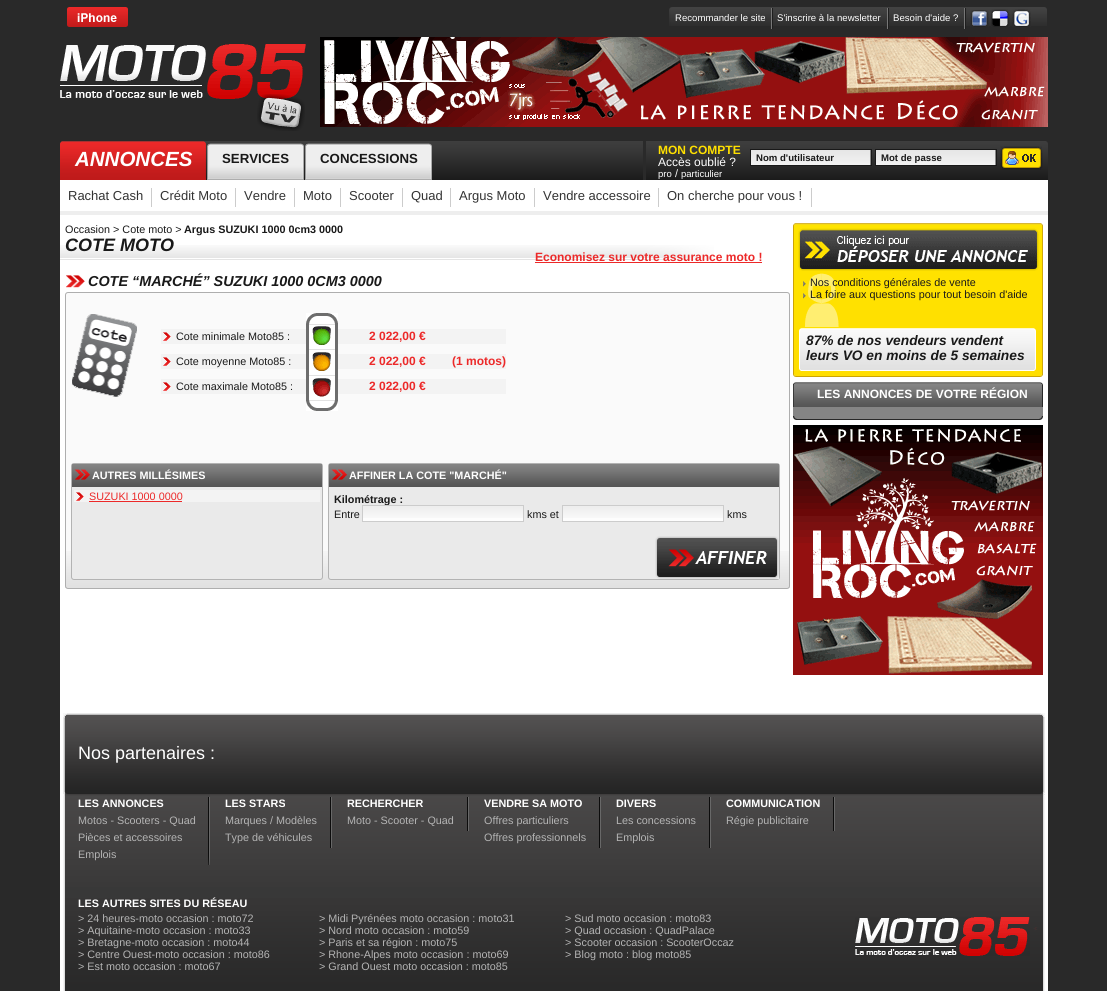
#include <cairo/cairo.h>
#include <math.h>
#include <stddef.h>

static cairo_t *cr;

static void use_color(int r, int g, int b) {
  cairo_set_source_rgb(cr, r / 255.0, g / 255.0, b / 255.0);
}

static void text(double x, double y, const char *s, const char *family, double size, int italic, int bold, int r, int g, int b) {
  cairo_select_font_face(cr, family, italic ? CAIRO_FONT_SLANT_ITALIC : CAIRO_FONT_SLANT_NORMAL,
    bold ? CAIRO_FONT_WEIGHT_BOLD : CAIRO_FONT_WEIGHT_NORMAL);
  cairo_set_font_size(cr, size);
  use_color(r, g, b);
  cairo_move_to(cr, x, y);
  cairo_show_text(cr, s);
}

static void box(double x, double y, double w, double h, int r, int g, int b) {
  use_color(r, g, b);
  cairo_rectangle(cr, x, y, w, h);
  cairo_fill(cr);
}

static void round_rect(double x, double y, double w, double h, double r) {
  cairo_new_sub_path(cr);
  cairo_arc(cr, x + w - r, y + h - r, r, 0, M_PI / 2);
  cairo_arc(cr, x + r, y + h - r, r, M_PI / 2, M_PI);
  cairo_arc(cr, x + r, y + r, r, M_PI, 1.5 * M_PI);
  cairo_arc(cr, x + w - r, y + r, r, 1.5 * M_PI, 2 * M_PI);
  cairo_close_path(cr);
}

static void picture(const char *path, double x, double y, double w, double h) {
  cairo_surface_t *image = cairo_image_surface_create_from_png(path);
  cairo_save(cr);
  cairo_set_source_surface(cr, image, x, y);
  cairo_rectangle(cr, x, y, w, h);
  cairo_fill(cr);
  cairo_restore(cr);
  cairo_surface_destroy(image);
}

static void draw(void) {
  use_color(41, 41, 41);
  cairo_paint(cr);
  picture("img_01.png", 67, 7, 61, 20);
  picture("img_02.png", 669, 7, 378, 19);
  picture("img_03.png", 771, 8, 2, 21);
  picture("img_03.png", 887, 8, 2, 21);
  picture("img_03.png", 964, 8, 2, 21);
  picture("img_04.png", 970, 10, 19, 17);
  picture("img_05.png", 991, 9, 19, 18);
  picture("img_06.png", 1012, 9, 19, 18);
  picture("img_07.png", 60, 44, 246, 55);
  picture("img_08.png", 257, 94, 48, 37);
  picture("img_09.png", 320, 37, 728, 90);
  picture("img_10.png", 206, 141, 842, 39);
  picture("img_11.png", 60, 141, 146, 39);
  picture("img_12.png", 204, 141, 2, 37);
  picture("img_13.png", 207, 143, 94, 37);
  picture("img_14.png", 301, 143, 3, 37);
  picture("img_15.png", 305, 143, 124, 37);
  picture("img_14.png", 429, 143, 3, 37);
  box(643, 141, 3, 39, 42, 42, 42);
  picture("img_16.png", 751, 150, 120, 15);
  cairo_rectangle(cr, 750.5, 149.5, 121, 16);
  use_color(25, 25, 25);
  cairo_set_line_width(cr, 1);
  cairo_stroke(cr);
  picture("img_16.png", 876, 150, 120, 15);
  cairo_rectangle(cr, 875.5, 149.5, 121, 16);
  cairo_stroke(cr);
  picture("img_17.png", 1000, 146, 42, 24);
  box(60, 180, 988, 811, 255, 255, 255);
  box(60, 211, 988, 4, 238, 238, 238);
  box(151, 188, 1, 19, 204, 204, 204);
  box(235, 188, 1, 19, 204, 204, 204);
  box(294, 188, 1, 19, 204, 204, 204);
  box(340, 188, 1, 19, 204, 204, 204);
  box(402, 188, 1, 19, 204, 204, 204);
  box(450, 188, 1, 19, 204, 204, 204);
  box(534, 188, 1, 19, 204, 204, 204);
  box(658, 188, 1, 19, 204, 204, 204);
  box(811, 188, 1, 19, 204, 204, 204);
  picture("img_18.png", 60, 245, 654, 15);
  box(535, 262, 227, 1, 236, 41, 41);
  picture("img_19.png", 66, 275, 19, 13);
  use_color(250, 250, 250);
  round_rect(65, 292, 725, 297, 3);
  cairo_fill(cr);
  picture("img_20.png", 65, 551, 725, 37);
  round_rect(65.5, 292.5, 724, 296, 2.5);
  use_color(174, 174, 174);
  cairo_stroke(cr);
  picture("img_21.png", 72, 314, 65, 83);
  box(161, 329, 345, 15, 243, 243, 243);
  box(161, 354, 345, 15, 243, 243, 243);
  box(161, 379, 345, 15, 243, 243, 243);
  picture("img_22.png", 306, 313, 32, 98);
  picture("img_23.png", 163, 332, 8, 9);
  picture("img_23.png", 163, 357, 8, 9);
  picture("img_23.png", 163, 382, 8, 9);
  use_color(234, 234, 234);
  round_rect(71.5, 463.5, 251, 116, 2.5);
  cairo_fill_preserve(cr);
  use_color(179, 179, 179);
  cairo_stroke(cr);
  picture("img_24.png", 72, 464, 250, 23);
  box(74, 490, 246, 12, 243, 243, 243);
  picture("img_23.png", 76, 492, 8, 9);
  box(89, 501, 93, 1, 236, 41, 41);
  use_color(234, 234, 234);
  round_rect(328.5, 463.5, 451, 116, 2.5);
  cairo_fill_preserve(cr);
  use_color(179, 179, 179);
  cairo_stroke(cr);
  picture("img_25.png", 329, 464, 450, 23);
  box(363, 518, 160, 3, 253, 253, 253);
  picture("img_26.png", 363, 506, 160, 12);
  box(563, 518, 160, 3, 253, 253, 253);
  picture("img_26.png", 563, 506, 160, 12);
  cairo_rectangle(cr, 562.5, 505.5, 161, 16);
  use_color(204, 204, 204);
  cairo_stroke(cr);
  picture("img_27.png", 655, 536, 124, 43);
  picture("img_28.png", 793, 223, 250, 154);
  picture("img_29.png", 798, 228, 241, 43);
  picture("img_30.png", 803, 281, 3, 6);
  picture("img_31.png", 803, 293, 3, 6);
  box(793, 407, 250, 9, 133, 133, 133);
  picture("img_32.png", 793, 382, 250, 25);
  picture("img_33.png", 793, 416, 250, 4);
  picture("img_34.png", 793, 425, 250, 250);
  picture("img_35.png", 63, 713, 982, 83);
  picture("img_36.png", 63, 796, 982, 195);
  picture("img_37.png", 208, 797, 2, 68);
  picture("img_38.png", 330, 797, 2, 51);
  picture("img_39.png", 467, 797, 2, 34);
  picture("img_38.png", 599, 797, 2, 51);
  picture("img_38.png", 709, 797, 2, 51);
  picture("img_39.png", 833, 797, 2, 34);
  picture("img_40.png", 855, 917, 175, 39);
  text(675, 21, "Recommander le site", "Liberation Sans", 9.6, 0, 0, 255, 255, 255);
  text(777, 21, "S'inscrire à la newsletter", "Liberation Sans", 9.6, 0, 0, 255, 255, 255);
  text(893, 21, "Besoin d'aide ?", "Liberation Sans", 9.6, 0, 0, 255, 255, 255);
  text(75, 166, "ANNONCES", "Liberation Sans", 20.5, 1, 1, 255, 255, 255);
  text(222, 163, "SERVICES", "Liberation Sans", 13.25, 0, 1, 25, 25, 25);
  text(320, 163, "CONCESSIONS", "Liberation Sans", 13.25, 0, 1, 25, 25, 25);
  text(658, 154, "MON COMPTE", "Liberation Sans", 12, 0, 1, 255, 224, 0);
  text(658, 166, "Accès oublié ?", "Liberation Sans", 12, 0, 0, 255, 255, 255);
  text(658, 177, "pro", "Liberation Sans", 9.5, 0, 0, 255, 255, 255);
  text(675, 177, "/", "Liberation Sans", 10.8, 0, 0, 255, 255, 255);
  text(681, 177, "particulier", "Liberation Sans", 9.5, 0, 0, 255, 255, 255);
  text(756, 161, "Nom d'utilisateur", "Liberation Sans", 9.6, 0, 1, 25, 25, 25);
  text(881, 161, "Mot de passe", "Liberation Sans", 9.6, 0, 1, 25, 25, 25);
  text(68, 200, "Rachat Cash", "Liberation Sans", 13, 0, 0, 51, 51, 51);
  text(160, 200, "Crédit Moto", "Liberation Sans", 13, 0, 0, 51, 51, 51);
  text(244, 200, "Vendre", "Liberation Sans", 13, 0, 0, 51, 51, 51);
  text(303, 200, "Moto", "Liberation Sans", 13, 0, 0, 51, 51, 51);
  text(349, 200, "Scooter", "Liberation Sans", 13, 0, 0, 51, 51, 51);
  text(411, 200, "Quad", "Liberation Sans", 13, 0, 0, 51, 51, 51);
  text(459, 200, "Argus Moto", "Liberation Sans", 13, 0, 0, 51, 51, 51);
  text(543, 200, "Vendre accessoire", "Liberation Sans", 13, 0, 0, 51, 51, 51);
  text(667, 200, "On cherche pour vous !", "Liberation Sans", 13, 0, 0, 51, 51, 51);
  text(65, 233, "Occasion > Cote moto >", "Liberation Sans", 10.8, 0, 0, 25, 25, 25);
  text(184, 233, "Argus SUZUKI 1000 0cm3 0000", "Liberation Sans", 10.8, 0, 1, 25, 25, 25);
  text(65, 251, "COTE MOTO", "Liberation Sans", 18, 1, 1, 25, 25, 25);
  text(535, 261, "Economisez sur votre assurance moto !", "Liberation Sans", 12, 0, 1, 236, 41, 41);
  text(88, 286, "COTE “MARCHÉ” SUZUKI 1000 0CM3 0000", "Liberation Sans", 14.4, 1, 1, 25, 25, 25);
  text(176, 340, "Cote minimale Moto85 :", "Liberation Sans", 10.8, 0, 0, 25, 25, 25);
  text(369, 340, "2 022,00 €", "Liberation Sans", 12, 0, 1, 236, 41, 41);
  text(176, 365, "Cote moyenne Moto85 :", "Liberation Sans", 10.8, 0, 0, 25, 25, 25);
  text(369, 365, "2 022,00 €", "Liberation Sans", 12, 0, 1, 236, 41, 41);
  text(452, 365, "(1 motos)", "Liberation Sans", 12, 0, 1, 236, 41, 41);
  text(176, 390, "Cote maximale Moto85 :", "Liberation Sans", 10.8, 0, 0, 25, 25, 25);
  text(369, 390, "2 022,00 €", "Liberation Sans", 12, 0, 1, 236, 41, 41);
  text(92, 479, "AUTRES MILLÉSIMES", "Liberation Sans", 10.8, 0, 1, 255, 255, 255);
  text(89, 500, "SUZUKI 1000 0000", "Liberation Sans", 10.8, 0, 0, 236, 41, 41);
  text(349, 479, "AFFINER LA COTE \"MARCHÉ\"", "Liberation Sans", 10.8, 0, 1, 255, 255, 255);
  text(334, 503, "Kilométrage :", "Liberation Sans", 10.8, 0, 1, 25, 25, 25);
  text(334, 518, "Entre", "Liberation Sans", 10.8, 0, 0, 25, 25, 25);
  cairo_rectangle(cr, 362.5, 505.5, 161, 16);
  use_color(204, 204, 204);
  cairo_stroke(cr);
  text(527, 518, "kms et", "Liberation Sans", 10.8, 0, 0, 25, 25, 25);
  text(727, 518, "kms", "Liberation Sans", 10.8, 0, 0, 25, 25, 25);
  text(810, 286, "Nos conditions générales de vente", "Liberation Sans", 10.8, 0, 0, 25, 25, 25);
  text(810, 298, "La foire aux questions pour tout besoin d'aide", "Liberation Sans", 10.8, 0, 0, 25, 25, 25);
  text(806, 345, "87% de nos vendeurs vendent", "Liberation Sans", 13.75, 1, 1, 25, 25, 25);
  text(806, 360, "leurs VO en moins de 5 semaines", "Liberation Sans", 13.75, 1, 1, 25, 25, 25);
  text(817, 398, "LES ANNONCES DE VOTRE RÉGION", "Liberation Sans", 12, 0, 1, 255, 255, 255);
  text(78, 759, "Nos partenaires :", "Liberation Sans", 18, 0, 0, 255, 255, 255);
  text(78, 807, "LES ANNONCES", "Liberation Sans", 10.8, 0, 1, 255, 255, 255);
  text(78, 824, "Motos - Scooters - Quad", "Liberation Sans", 10.8, 0, 0, 180, 180, 180);
  text(78, 841, "Pièces et accessoires", "Liberation Sans", 10.8, 0, 0, 180, 180, 180);
  text(78, 858, "Emplois", "Liberation Sans", 10.8, 0, 0, 180, 180, 180);
  text(225, 807, "LES STARS", "Liberation Sans", 10.8, 0, 1, 255, 255, 255);
  text(225, 824, "Marques / Modèles", "Liberation Sans", 10.8, 0, 0, 180, 180, 180);
  text(225, 841, "Type de véhicules", "Liberation Sans", 10.8, 0, 0, 180, 180, 180);
  text(347, 807, "RECHERCHER", "Liberation Sans", 10.8, 0, 1, 255, 255, 255);
  text(347, 824, "Moto - Scooter - Quad", "Liberation Sans", 10.8, 0, 0, 180, 180, 180);
  text(484, 807, "VENDRE SA MOTO", "Liberation Sans", 10.8, 0, 1, 255, 255, 255);
  text(484, 824, "Offres particuliers", "Liberation Sans", 10.8, 0, 0, 180, 180, 180);
  text(484, 841, "Offres professionnels", "Liberation Sans", 10.8, 0, 0, 180, 180, 180);
  text(616, 807, "DIVERS", "Liberation Sans", 10.8, 0, 1, 255, 255, 255);
  text(616, 824, "Les concessions", "Liberation Sans", 10.8, 0, 0, 180, 180, 180);
  text(616, 841, "Emplois", "Liberation Sans", 10.8, 0, 0, 180, 180, 180);
  text(726, 807, "COMMUNICATION", "Liberation Sans", 10.8, 0, 1, 255, 255, 255);
  text(726, 824, "Régie publicitaire", "Liberation Sans", 10.8, 0, 0, 180, 180, 180);
  text(78, 907, "LES AUTRES SITES DU RÉSEAU", "Liberation Sans", 10.8, 0, 1, 255, 255, 255);
  text(78, 922, "> 24 heures-moto occasion : moto72", "Liberation Sans", 10.8, 0, 0, 180, 180, 180);
  text(78, 934, "> Aquitaine-moto occasion : moto33", "Liberation Sans", 10.8, 0, 0, 180, 180, 180);
  text(78, 946, "> Bretagne-moto occasion : moto44", "Liberation Sans", 10.8, 0, 0, 180, 180, 180);
  text(78, 958, "> Centre Ouest-moto occasion : moto86", "Liberation Sans", 10.8, 0, 0, 180, 180, 180);
  text(78, 970, "> Est moto occasion : moto67", "Liberation Sans", 10.8, 0, 0, 180, 180, 180);
  text(319, 922, "> Midi Pyrénées moto occasion : moto31", "Liberation Sans", 10.8, 0, 0, 180, 180, 180);
  text(319, 934, "> Nord moto occasion : moto59", "Liberation Sans", 10.8, 0, 0, 180, 180, 180);
  text(319, 946, "> Paris et sa région : moto75", "Liberation Sans", 10.8, 0, 0, 180, 180, 180);
  text(319, 958, "> Rhone-Alpes moto occasion : moto69", "Liberation Sans", 10.8, 0, 0, 180, 180, 180);
  text(319, 970, "> Grand Ouest moto occasion : moto85", "Liberation Sans", 10.8, 0, 0, 180, 180, 180);
  text(565, 922, "> Sud moto occasion : moto83", "Liberation Sans", 10.8, 0, 0, 180, 180, 180);
  text(565, 934, "> Quad occasion : QuadPalace", "Liberation Sans", 10.8, 0, 0, 180, 180, 180);
  text(565, 946, "> Scooter occasion : ScooterOccaz", "Liberation Sans", 10.8, 0, 0, 180, 180, 180);
  text(565, 958, "> Blog moto : blog moto85", "Liberation Sans", 10.8, 0, 0, 180, 180, 180);
}

int main(void) {
  cairo_surface_t *surface = cairo_image_surface_create(CAIRO_FORMAT_RGB24, 1107, 991);
  cr = cairo_create(surface);
  cairo_font_options_t *options = cairo_font_options_create();
  cairo_font_options_set_hint_metrics(options, CAIRO_HINT_METRICS_OFF);
  cairo_font_options_set_hint_style(options, CAIRO_HINT_STYLE_NONE);
  cairo_set_font_options(cr, options);
  cairo_set_miter_limit(cr, 4);
  draw();
  cairo_surface_write_to_png(surface, "out.png");
  cairo_font_options_destroy(options);
  cairo_destroy(cr);
  cairo_surface_destroy(surface);
  return 0;
}
